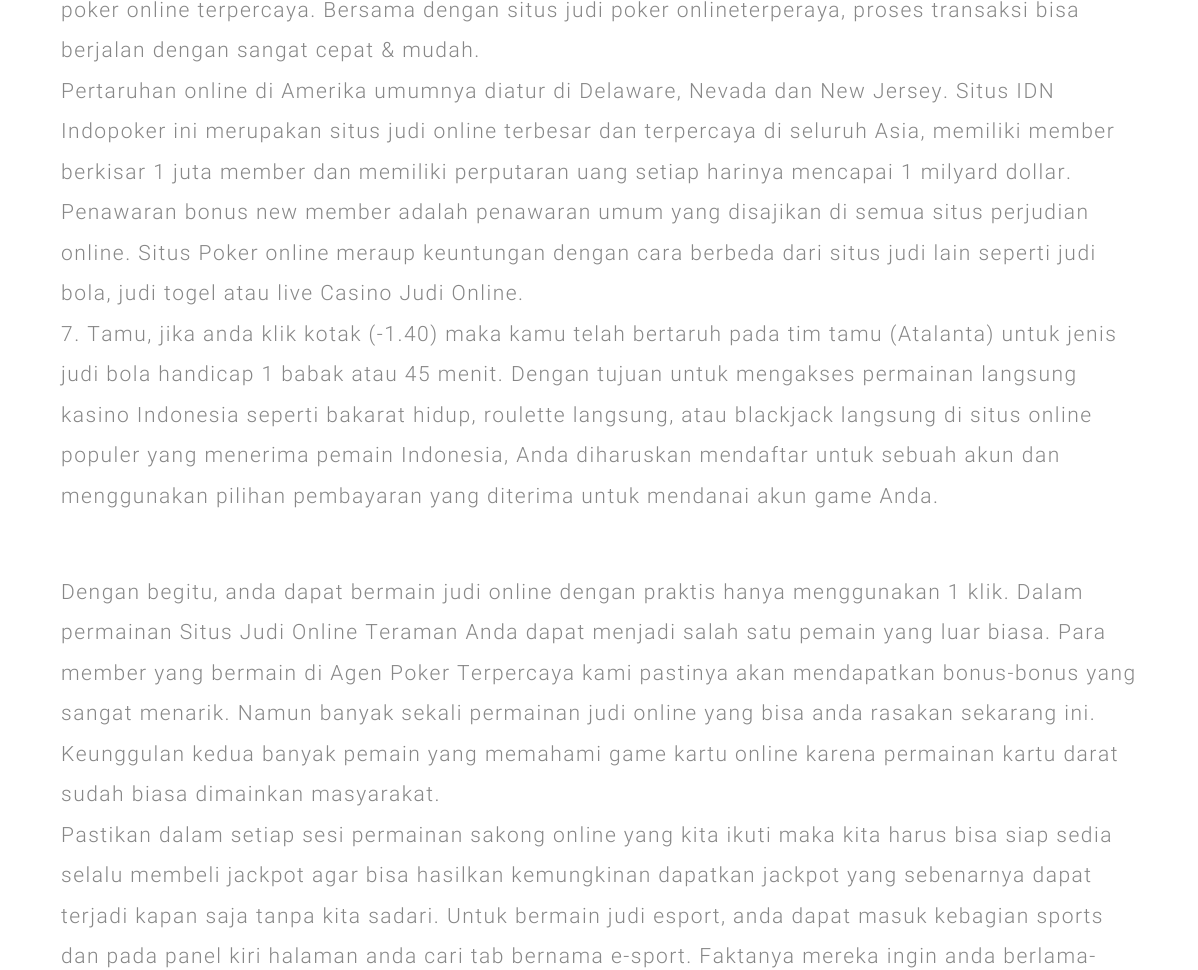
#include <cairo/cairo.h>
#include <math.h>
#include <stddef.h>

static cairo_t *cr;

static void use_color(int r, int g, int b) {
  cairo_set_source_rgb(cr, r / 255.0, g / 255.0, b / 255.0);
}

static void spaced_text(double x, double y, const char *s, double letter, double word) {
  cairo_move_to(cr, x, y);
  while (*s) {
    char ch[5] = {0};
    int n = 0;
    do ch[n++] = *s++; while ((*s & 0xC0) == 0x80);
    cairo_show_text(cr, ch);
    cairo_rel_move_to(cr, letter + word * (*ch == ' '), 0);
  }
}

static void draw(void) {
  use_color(255, 255, 255);
  cairo_paint(cr);
  cairo_select_font_face(cr, "Roboto Light", CAIRO_FONT_SLANT_NORMAL, CAIRO_FONT_WEIGHT_NORMAL);
  cairo_set_font_size(cr, 21);
  use_color(135, 135, 135);
  spaced_text(61, 17, "poker online terpercaya. Bersama dengan situs judi poker onlineterperaya, proses transaksi bisa", 1.5, 0);
  spaced_text(61, 57, "berjalan dengan sangat cepat & mudah.", 1.5, 0);
  spaced_text(61, 98, "Pertaruhan online di Amerika umumnya diatur di Delaware, Nevada dan New Jersey. Situs IDN", 1.5, 0);
  spaced_text(61, 138, "Indopoker ini merupakan situs judi online terbesar dan terpercaya di seluruh Asia, memiliki member", 1.5, 0);
  spaced_text(61, 179, "berkisar 1 juta member dan memiliki perputaran uang setiap harinya mencapai 1 milyard dollar.", 1.5, 0);
  spaced_text(61, 219, "Penawaran bonus new member adalah penawaran umum yang disajikan di semua situs perjudian", 1.5, 0);
  spaced_text(61, 260, "online. Situs Poker online meraup keuntungan dengan cara berbeda dari situs judi lain seperti judi", 1.5, 0);
  spaced_text(61, 300, "bola, judi togel atau live Casino Judi Online.", 1.5, 0);
  spaced_text(61, 341, "7. Tamu, jika anda klik kotak (-1.40) maka kamu telah bertaruh pada tim tamu (Atalanta) untuk jenis", 1.5, 0);
  spaced_text(61, 381, "judi bola handicap 1 babak atau 45 menit. Dengan tujuan untuk mengakses permainan langsung", 1.5, 0);
  spaced_text(61, 422, "kasino Indonesia seperti bakarat hidup, roulette langsung, atau blackjack langsung di situs online", 1.5, 0);
  spaced_text(61, 462, "populer yang menerima pemain Indonesia, Anda diharuskan mendaftar untuk sebuah akun dan", 1.5, 0);
  spaced_text(61, 503, "menggunakan pilihan pembayaran yang diterima untuk mendanai akun game Anda.", 1.5, 0);
  spaced_text(61, 599, "Dengan begitu, anda dapat bermain judi online dengan praktis hanya menggunakan 1 klik. Dalam", 1.5, 0);
  spaced_text(61, 639, "permainan Situs Judi Online Teraman Anda dapat menjadi salah satu pemain yang luar biasa. Para", 1.5, 0);
  spaced_text(61, 680, "member yang bermain di Agen Poker Terpercaya kami pastinya akan mendapatkan bonus-bonus yang", 1.5, 0);
  spaced_text(61, 720, "sangat menarik. Namun banyak sekali permainan judi online yang bisa anda rasakan sekarang ini.", 1.5, 0);
  spaced_text(61, 761, "Keunggulan kedua banyak pemain yang memahami game kartu online karena permainan kartu darat", 1.5, 0);
  spaced_text(61, 801, "sudah biasa dimainkan masyarakat.", 1.5, 0);
  spaced_text(61, 842, "Pastikan dalam setiap sesi permainan sakong online yang kita ikuti maka kita harus bisa siap sedia", 1.5, 0);
  spaced_text(61, 882, "selalu membeli jackpot agar bisa hasilkan kemungkinan dapatkan jackpot yang sebenarnya dapat", 1.5, 0);
  spaced_text(61, 923, "terjadi kapan saja tanpa kita sadari. Untuk bermain judi esport, anda dapat masuk kebagian sports", 1.5, 0);
  spaced_text(61, 963, "dan pada panel kiri halaman anda cari tab bernama e-sport. Faktanya mereka ingin anda berlama-", 1.5, 0);
}

int main(void) {
  cairo_surface_t *surface = cairo_image_surface_create(CAIRO_FORMAT_RGB24, 1198, 970);
  cr = cairo_create(surface);
  cairo_font_options_t *options = cairo_font_options_create();
  cairo_font_options_set_hint_metrics(options, CAIRO_HINT_METRICS_OFF);
  cairo_font_options_set_hint_style(options, CAIRO_HINT_STYLE_NONE);
  cairo_set_font_options(cr, options);
  cairo_set_miter_limit(cr, 4);
  draw();
  cairo_surface_write_to_png(surface, "out.png");
  cairo_font_options_destroy(options);
  cairo_destroy(cr);
  cairo_surface_destroy(surface);
  return 0;
}
